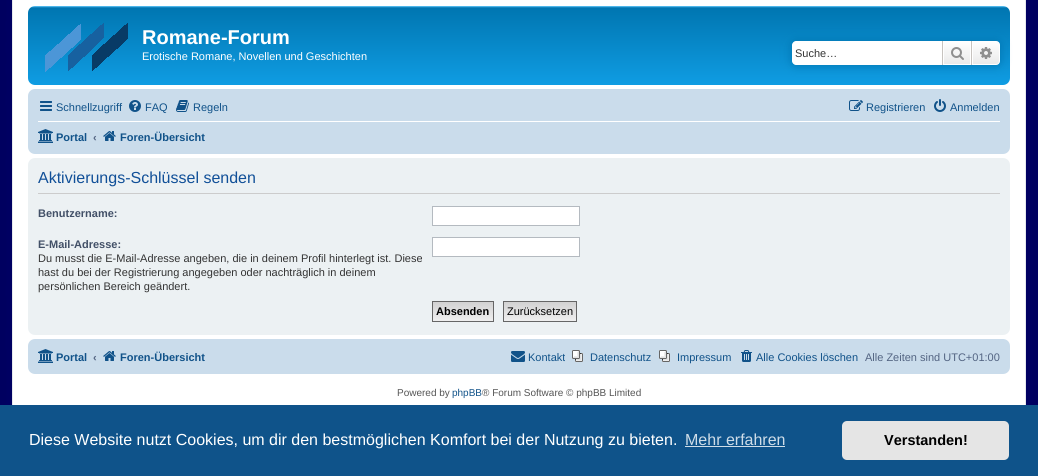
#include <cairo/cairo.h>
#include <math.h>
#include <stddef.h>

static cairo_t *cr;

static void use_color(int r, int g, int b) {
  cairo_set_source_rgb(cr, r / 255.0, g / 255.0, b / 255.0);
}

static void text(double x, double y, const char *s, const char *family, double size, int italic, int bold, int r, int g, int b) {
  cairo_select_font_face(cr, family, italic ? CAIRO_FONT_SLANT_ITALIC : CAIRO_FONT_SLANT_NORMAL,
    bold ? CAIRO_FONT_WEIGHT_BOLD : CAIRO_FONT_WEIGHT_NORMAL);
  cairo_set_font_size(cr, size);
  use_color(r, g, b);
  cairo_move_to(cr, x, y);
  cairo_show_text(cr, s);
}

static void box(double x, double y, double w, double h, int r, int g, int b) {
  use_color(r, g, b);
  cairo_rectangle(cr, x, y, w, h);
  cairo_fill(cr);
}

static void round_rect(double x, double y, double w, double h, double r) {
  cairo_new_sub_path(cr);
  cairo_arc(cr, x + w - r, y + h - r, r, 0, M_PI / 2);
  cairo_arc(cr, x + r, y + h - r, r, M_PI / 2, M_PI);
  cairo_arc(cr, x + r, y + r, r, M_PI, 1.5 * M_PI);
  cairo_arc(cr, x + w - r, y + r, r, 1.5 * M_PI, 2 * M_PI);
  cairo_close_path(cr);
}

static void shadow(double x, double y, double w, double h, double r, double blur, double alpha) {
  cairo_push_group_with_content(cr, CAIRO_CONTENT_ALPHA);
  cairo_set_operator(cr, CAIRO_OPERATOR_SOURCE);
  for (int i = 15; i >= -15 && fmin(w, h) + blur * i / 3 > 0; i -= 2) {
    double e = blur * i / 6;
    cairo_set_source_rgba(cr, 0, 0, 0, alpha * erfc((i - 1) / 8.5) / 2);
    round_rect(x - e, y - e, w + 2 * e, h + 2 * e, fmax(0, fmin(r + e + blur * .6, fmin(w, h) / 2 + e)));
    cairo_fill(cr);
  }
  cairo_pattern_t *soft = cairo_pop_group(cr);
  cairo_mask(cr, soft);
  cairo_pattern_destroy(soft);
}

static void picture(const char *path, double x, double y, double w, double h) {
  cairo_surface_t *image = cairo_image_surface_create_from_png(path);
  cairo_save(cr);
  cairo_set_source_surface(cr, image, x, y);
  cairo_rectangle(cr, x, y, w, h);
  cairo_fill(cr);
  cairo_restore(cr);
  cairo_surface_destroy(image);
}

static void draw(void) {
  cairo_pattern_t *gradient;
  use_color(255, 255, 255);
  cairo_paint(cr);
  picture("img_01.png", 0, 0, 1038, 405);
  box(13, 0, 1012, 405, 255, 255, 255);
  cairo_rectangle(cr, 12.5, -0.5, 1013, 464);
  use_color(230, 233, 237);
  cairo_set_line_width(cr, 1);
  cairo_stroke(cr);
  gradient = cairo_pattern_create_linear(519, 6, 519, 98);
  cairo_pattern_add_color_stop_rgba(gradient, 0, 0.416, 0.808, 1, 1);
  cairo_pattern_add_color_stop_rgba(gradient, 0.02, 0, 0.463, 0.694, 1);
  cairo_pattern_add_color_stop_rgba(gradient, 1, 0.071, 0.639, 0.922, 1);
  cairo_set_source(cr, gradient);
  cairo_pattern_destroy(gradient);
  round_rect(28, 6, 982, 79, 7);
  cairo_fill(cr);
  picture("img_02.png", 45, 23, 83, 49);
  use_color(0, 117, 176);
  shadow(792, 41, 208, 24, 4, 5, 1);
  use_color(255, 255, 255);
  cairo_new_path(cr);
  cairo_move_to(cr, 796, 41);
  cairo_line_to(cr, 942, 41);
  cairo_line_to(cr, 942, 65);
  cairo_line_to(cr, 796, 65);
  cairo_curve_to(cr, 794, 65, 792, 63, 792, 61);
  cairo_line_to(cr, 792, 45);
  cairo_curve_to(cr, 792, 43, 794, 41, 796, 41);
  cairo_close_path(cr);
  cairo_fill(cr);
  gradient = cairo_pattern_create_linear(957, 41, 957, 65);
  cairo_pattern_add_color_stop_rgba(gradient, 0, 1, 1, 1, 1);
  cairo_pattern_add_color_stop_rgba(gradient, 1, 0.914, 0.914, 0.914, 1);
  cairo_set_source(cr, gradient);
  cairo_pattern_destroy(gradient);
  cairo_rectangle(cr, 944, 42, 26, 22);
  cairo_fill(cr);
  cairo_rectangle(cr, 943.5, 41.5, 27, 23);
  use_color(255, 255, 255);
  cairo_stroke(cr);
  box(971, 41, 1, 24, 199, 195, 191);
  box(942, 41, 1, 24, 199, 195, 191);
  picture("img_03.png", 951, 47, 13, 13);
  gradient = cairo_pattern_create_linear(986, 41, 986, 65);
  cairo_pattern_add_color_stop_rgba(gradient, 0, 1, 1, 1, 1);
  cairo_pattern_add_color_stop_rgba(gradient, 1, 0.914, 0.914, 0.914, 1);
  cairo_set_source(cr, gradient);
  cairo_pattern_destroy(gradient);
  cairo_new_path(cr);
  cairo_move_to(cr, 972.5, 41.5);
  cairo_line_to(cr, 996, 41.5);
  cairo_curve_to(cr, 998, 41.5, 999.5, 43, 999.5, 45);
  cairo_line_to(cr, 999.5, 61);
  cairo_curve_to(cr, 999.5, 63, 998, 64.5, 996, 64.5);
  cairo_line_to(cr, 972.5, 64.5);
  cairo_close_path(cr);
  cairo_fill_preserve(cr);
  use_color(255, 255, 255);
  cairo_stroke(cr);
  picture("img_04.png", 980, 47, 12, 12);
  use_color(202, 220, 235);
  round_rect(28, 89, 982, 65, 7);
  cairo_fill(cr);
  picture("img_05.png", 40, 101, 12, 10);
  picture("img_06.png", 129, 100, 12, 12);
  picture("img_07.png", 176, 100, 13, 12);
  picture("img_08.png", 849, 100, 14, 11);
  picture("img_09.png", 934, 99, 12, 13);
  box(38, 121, 962, 1, 255, 255, 255);
  picture("img_10.png", 38, 129, 15, 14);
  picture("img_11.png", 103, 131, 13, 10);
  use_color(236, 241, 243);
  round_rect(28, 158, 982, 177, 7);
  cairo_fill(cr);
  box(38, 193, 962, 1, 204, 204, 204);
  use_color(255, 255, 255);
  cairo_rectangle(cr, 432.5, 206.5, 147, 19);
  cairo_fill_preserve(cr);
  use_color(180, 186, 192);
  cairo_stroke(cr);
  use_color(255, 255, 255);
  cairo_rectangle(cr, 432.5, 237.5, 147, 19);
  cairo_fill_preserve(cr);
  use_color(180, 186, 192);
  cairo_stroke(cr);
  gradient = cairo_pattern_create_linear(463, 302, 463, 321);
  cairo_pattern_add_color_stop_rgba(gradient, 0, 0.824, 0.824, 0.824, 1);
  cairo_pattern_add_color_stop_rgba(gradient, 1, 0.937, 0.937, 0.937, 1);
  cairo_set_source(cr, gradient);
  cairo_pattern_destroy(gradient);
  cairo_rectangle(cr, 433, 302, 60, 19);
  cairo_fill(cr);
  cairo_rectangle(cr, 432.5, 301.5, 61, 20);
  use_color(102, 102, 102);
  cairo_stroke(cr);
  gradient = cairo_pattern_create_linear(540, 302, 540, 321);
  cairo_pattern_add_color_stop_rgba(gradient, 0, 0.824, 0.824, 0.824, 1);
  cairo_pattern_add_color_stop_rgba(gradient, 1, 0.937, 0.937, 0.937, 1);
  cairo_set_source(cr, gradient);
  cairo_pattern_destroy(gradient);
  cairo_rectangle(cr, 504, 302, 72, 19);
  cairo_fill(cr);
  cairo_rectangle(cr, 503.5, 301.5, 73, 20);
  use_color(102, 102, 102);
  cairo_stroke(cr);
  use_color(202, 220, 235);
  round_rect(28, 339, 982, 35, 7);
  cairo_fill(cr);
  picture("img_10.png", 38, 349, 15, 14);
  picture("img_11.png", 103, 351, 13, 10);
  picture("img_12.png", 511, 351, 14, 11);
  picture("img_13.png", 572, 350, 11, 12);
  picture("img_13.png", 659, 350, 11, 12);
  picture("img_14.png", 741, 350, 11, 12);
  box(0, 405, 1038, 71, 15, 83, 138);
  box(685, 446, 100, 1, 207, 221, 232);
  use_color(229, 229, 229);
  round_rect(842, 421, 167, 39, 5);
  cairo_fill(cr);
  text(142, 44, "Romane-Forum", "Liberation Sans", 20, 0, 1, 255, 255, 255);
  text(142, 60, "Erotische Romane, Novellen und Geschichten", "Liberation Sans", 11, 0, 0, 255, 255, 255);
  text(795, 57, "Suche…", "Liberation Sans", 11, 0, 0, 51, 51, 51);
  text(56, 111, "Schnellzugriff", "Liberation Sans", 11, 0, 0, 16, 82, 137);
  text(145, 111, "FAQ", "Liberation Sans", 11, 0, 0, 16, 82, 137);
  text(193, 111, "Regeln", "Liberation Sans", 11, 0, 0, 16, 82, 137);
  text(866, 111, "Registrieren", "Liberation Sans", 11, 0, 0, 16, 82, 137);
  text(950, 111, "Anmelden", "Liberation Sans", 11, 0, 0, 16, 82, 137);
  text(56, 141, "Portal", "Liberation Sans", 11, 0, 1, 16, 82, 137);
  text(93, 141, "‹", "Liberation Sans", 11, 0, 1, 83, 100, 130);
  text(120, 141, "Foren-Übersicht", "Liberation Sans", 11, 0, 1, 16, 82, 137);
  text(38, 183, "Aktivierungs-Schlüssel senden", "Liberation Sans", 16, 0, 0, 17, 80, 152);
  text(38, 217, "Benutzername:", "Liberation Sans", 11, 0, 1, 66, 80, 103);
  text(38, 248, "E-Mail-Adresse:", "Liberation Sans", 11, 0, 1, 66, 80, 103);
  text(38, 262, "Du musst die E-Mail-Adresse angeben, die in deinem Profil hinterlegt ist. Diese", "Liberation Sans", 11, 0, 0, 51, 51, 51);
  text(38, 276, "hast du bei der Registrierung angegeben oder nachträglich in deinem", "Liberation Sans", 11, 0, 0, 51, 51, 51);
  text(38, 290, "persönlichen Bereich geändert.", "Liberation Sans", 11, 0, 0, 51, 51, 51);
  text(436, 315, "Absenden", "Liberation Sans", 11, 0, 1, 0, 0, 0);
  text(507, 315, "Zurücksetzen", "Liberation Sans", 11, 0, 0, 0, 0, 0);
  text(56, 361, "Portal", "Liberation Sans", 11, 0, 1, 16, 82, 137);
  text(93, 361, "‹", "Liberation Sans", 11, 0, 1, 83, 100, 130);
  text(120, 361, "Foren-Übersicht", "Liberation Sans", 11, 0, 1, 16, 82, 137);
  text(528, 361, "Kontakt", "Liberation Sans", 11, 0, 0, 16, 82, 137);
  text(590, 361, "Datenschutz", "Liberation Sans", 11, 0, 0, 16, 82, 137);
  text(677, 361, "Impressum", "Liberation Sans", 11, 0, 0, 16, 82, 137);
  text(756, 361, "Alle Cookies löschen", "Liberation Sans", 11, 0, 0, 16, 82, 137);
  text(865, 361, "Alle Zeiten sind UTC+01:00", "Liberation Sans", 11, 0, 0, 83, 100, 130);
  text(397, 396, "Powered by", "Liberation Sans", 10, 0, 0, 85, 85, 85);
  text(452, 396, "phpBB", "Liberation Sans", 10, 0, 0, 16, 82, 137);
  text(482, 396, "® Forum Software © phpBB Limited", "Liberation Sans", 10, 0, 0, 85, 85, 85);
  text(29, 445, "Diese Website nutzt Cookies, um dir den bestmöglichen Komfort bei der Nutzung zu bieten.", "Liberation Sans", 16, 0, 0, 255, 255, 255);
  text(685, 445, "Mehr erfahren", "Liberation Sans", 16, 0, 0, 207, 221, 232);
  text(884, 445, "Verstanden!", "Liberation Sans", 14.5, 0, 1, 0, 0, 0);
}

int main(void) {
  cairo_surface_t *surface = cairo_image_surface_create(CAIRO_FORMAT_RGB24, 1038, 476);
  cr = cairo_create(surface);
  cairo_font_options_t *options = cairo_font_options_create();
  cairo_font_options_set_hint_metrics(options, CAIRO_HINT_METRICS_OFF);
  cairo_font_options_set_hint_style(options, CAIRO_HINT_STYLE_NONE);
  cairo_set_font_options(cr, options);
  cairo_set_miter_limit(cr, 4);
  draw();
  cairo_surface_write_to_png(surface, "out.png");
  cairo_font_options_destroy(options);
  cairo_destroy(cr);
  cairo_surface_destroy(surface);
  return 0;
}
